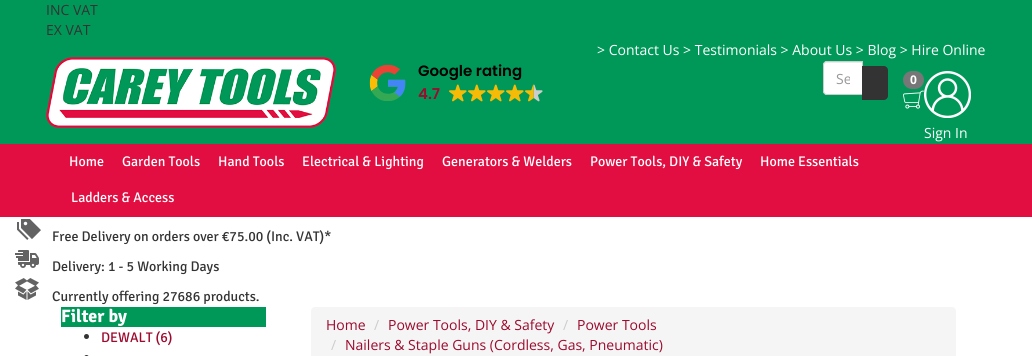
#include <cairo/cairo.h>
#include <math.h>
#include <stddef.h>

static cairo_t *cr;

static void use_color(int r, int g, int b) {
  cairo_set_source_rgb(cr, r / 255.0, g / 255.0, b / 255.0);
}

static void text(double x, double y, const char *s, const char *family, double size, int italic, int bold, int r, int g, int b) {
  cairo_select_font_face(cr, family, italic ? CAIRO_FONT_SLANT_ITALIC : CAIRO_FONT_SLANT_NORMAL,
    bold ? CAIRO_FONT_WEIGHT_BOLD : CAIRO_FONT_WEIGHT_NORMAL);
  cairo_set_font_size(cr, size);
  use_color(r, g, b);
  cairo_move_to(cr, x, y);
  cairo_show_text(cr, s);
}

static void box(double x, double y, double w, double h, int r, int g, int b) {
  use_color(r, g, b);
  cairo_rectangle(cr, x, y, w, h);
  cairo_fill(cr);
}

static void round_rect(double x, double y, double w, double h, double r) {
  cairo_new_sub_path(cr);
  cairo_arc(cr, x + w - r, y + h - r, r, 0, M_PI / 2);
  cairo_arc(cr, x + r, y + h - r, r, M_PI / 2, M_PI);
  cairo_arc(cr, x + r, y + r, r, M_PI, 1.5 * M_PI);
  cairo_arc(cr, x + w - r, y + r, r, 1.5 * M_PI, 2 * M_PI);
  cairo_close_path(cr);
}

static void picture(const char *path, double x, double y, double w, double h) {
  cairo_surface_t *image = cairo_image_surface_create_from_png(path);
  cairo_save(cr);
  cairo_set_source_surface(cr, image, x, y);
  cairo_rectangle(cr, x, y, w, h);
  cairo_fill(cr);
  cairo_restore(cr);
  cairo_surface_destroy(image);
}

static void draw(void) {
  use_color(255, 255, 255);
  cairo_paint(cr);
  box(0, 0, 1032, 144, 0, 152, 88);
  picture("img_01.png", 46, 57, 290, 71);
  picture("img_02.png", 369, 64, 37, 37);
  picture("img_03.png", 449, 84, 18, 18);
  picture("img_03.png", 468, 84, 18, 18);
  picture("img_03.png", 487, 84, 18, 18);
  picture("img_03.png", 506, 84, 18, 18);
  picture("img_04.png", 525, 84, 18, 18);
  use_color(255, 255, 255);
  cairo_new_path(cr);
  cairo_move_to(cr, 827, 61);
  cairo_line_to(cr, 863, 61);
  cairo_line_to(cr, 863, 95);
  cairo_line_to(cr, 827, 95);
  cairo_curve_to(cr, 825, 95, 823, 93, 823, 91);
  cairo_line_to(cr, 823, 65);
  cairo_curve_to(cr, 823, 63, 825, 61, 827, 61);
  cairo_close_path(cr);
  cairo_fill(cr);
  use_color(236, 236, 236);
  cairo_new_path(cr);
  cairo_move_to(cr, 827, 63);
  cairo_line_to(cr, 862, 63);
  cairo_line_to(cr, 862, 62);
  cairo_line_to(cr, 827, 62);
  cairo_curve_to(cr, 825.5, 62, 824, 63.5, 824, 65);
  cairo_line_to(cr, 824, 66);
  cairo_curve_to(cr, 824, 64, 825, 63, 827, 63);
  cairo_close_path(cr);
  cairo_fill(cr);
  cairo_new_path(cr);
  cairo_move_to(cr, 827, 61.5);
  cairo_line_to(cr, 862.5, 61.5);
  cairo_line_to(cr, 862.5, 94.5);
  cairo_line_to(cr, 827, 94.5);
  cairo_curve_to(cr, 825, 94.5, 823.5, 93, 823.5, 91);
  cairo_line_to(cr, 823.5, 65);
  cairo_curve_to(cr, 823.5, 63, 825, 61.5, 827, 61.5);
  cairo_close_path(cr);
  use_color(204, 204, 204);
  cairo_set_line_width(cr, 1);
  cairo_stroke(cr);
  use_color(51, 51, 51);
  cairo_new_path(cr);
  cairo_move_to(cr, 862, 66);
  cairo_line_to(cr, 884, 66);
  cairo_curve_to(cr, 886, 66, 888, 68, 888, 70);
  cairo_line_to(cr, 888, 96);
  cairo_curve_to(cr, 888, 98, 886, 100, 884, 100);
  cairo_line_to(cr, 862, 100);
  cairo_close_path(cr);
  cairo_fill(cr);
  use_color(119, 119, 119);
  round_rect(903, 71, 21, 18, 9);
  cairo_fill(cr);
  picture("img_05.png", 903, 90, 21, 19);
  picture("img_06.png", 924, 71, 47, 47);
  box(0, 144, 1032, 73, 226, 14, 65);
  picture("img_07.png", 17, 219, 24, 21);
  picture("img_08.png", 15, 250, 24, 18);
  picture("img_09.png", 15, 278, 24, 22);
  box(61, 307, 205, 20, 0, 152, 88);
  use_color(51, 51, 51);
  cairo_arc(cr, 86.5, 336.5, 2.5, 0, 2 * M_PI);
  cairo_fill(cr);
  round_rect(84, 355, 5, 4, 2.5);
  cairo_fill(cr);
  use_color(245, 245, 245);
  round_rect(311, 307, 645, 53, 4);
  cairo_fill(cr);
  text(46, 15, "INC VAT", "Open Sans", 14, 0, 0, 51, 51, 51);
  text(46, 35, "EX VAT", "Open Sans", 14, 0, 0, 51, 51, 51);
  text(597, 55, "> Contact Us > Testimonials > About Us > Blog > Hire Online", "Open Sans", 14, 0, 0, 255, 255, 255);
  text(418, 76, "Google rating", "Poppins SemiBold", 15, 0, 0, 0, 0, 0);
  text(418, 99, "4.7", "Poppins SemiBold", 15, 0, 0, 156, 10, 45);
  cairo_save(cr);
  cairo_rectangle(cr, 836, 69, 14, 19);
  cairo_clip(cr);
  text(836, 84, "Se", "Open Sans", 14, 0, 0, 153, 153, 153);
  cairo_restore(cr);
  text(910, 84, "0", "Open Sans", 12, 0, 1, 255, 255, 255);
  text(924, 138, "Sign In", "Open Sans", 14, 0, 0, 255, 255, 255);
  text(69, 166, "Home", "Signika", 14, 0, 0, 255, 255, 255);
  text(122, 166, "Garden Tools", "Signika", 14, 0, 0, 255, 255, 255);
  text(218, 166, "Hand Tools", "Signika", 14, 0, 0, 255, 255, 255);
  text(302, 166, "Electrical & Lighting", "Signika", 14, 0, 0, 255, 255, 255);
  text(442, 166, "Generators & Welders", "Signika", 14, 0, 0, 255, 255, 255);
  text(590, 166, "Power Tools, DIY & Safety", "Signika", 14, 0, 0, 255, 255, 255);
  text(760, 166, "Home Essentials", "Signika", 14, 0, 0, 255, 255, 255);
  text(71, 202, "Ladders & Access", "Signika", 14, 0, 0, 255, 255, 255);
  text(52, 241, "Free Delivery on orders over €75.00 (Inc. VAT)*", "Signika", 14, 0, 0, 51, 51, 51);
  text(52, 271, "Delivery: 1 - 5 Working Days", "Signika", 14, 0, 0, 51, 51, 51);
  text(52, 301, "Currently offering 27686 products.", "Signika", 14, 0, 0, 51, 51, 51);
  text(61, 322, "Filter by", "Signika", 18, 0, 1, 255, 255, 255);
  text(101, 342, "DEWALT (6)", "Signika", 14, 0, 0, 156, 10, 45);
  text(326, 330, "Home", "Open Sans", 14, 0, 0, 156, 10, 45);
  text(374, 330, "/", "Open Sans", 14, 0, 0, 204, 204, 204);
  text(388, 330, "Power Tools, DIY & Safety", "Open Sans", 14, 0, 0, 156, 10, 45);
  text(563, 330, "/", "Open Sans", 14, 0, 0, 204, 204, 204);
  text(577, 330, "Power Tools", "Open Sans", 14, 0, 0, 156, 10, 45);
  text(331, 350, "/", "Open Sans", 14, 0, 0, 204, 204, 204);
  text(345, 350, "Nailers & Staple Guns (Cordless, Gas, Pneumatic)", "Open Sans", 14, 0, 0, 156, 10, 45);
}

int main(void) {
  cairo_surface_t *surface = cairo_image_surface_create(CAIRO_FORMAT_RGB24, 1032, 356);
  cr = cairo_create(surface);
  cairo_font_options_t *options = cairo_font_options_create();
  cairo_font_options_set_hint_metrics(options, CAIRO_HINT_METRICS_OFF);
  cairo_font_options_set_hint_style(options, CAIRO_HINT_STYLE_NONE);
  cairo_set_font_options(cr, options);
  cairo_set_miter_limit(cr, 4);
  draw();
  cairo_surface_write_to_png(surface, "out.png");
  cairo_font_options_destroy(options);
  cairo_destroy(cr);
  cairo_surface_destroy(surface);
  return 0;
}
